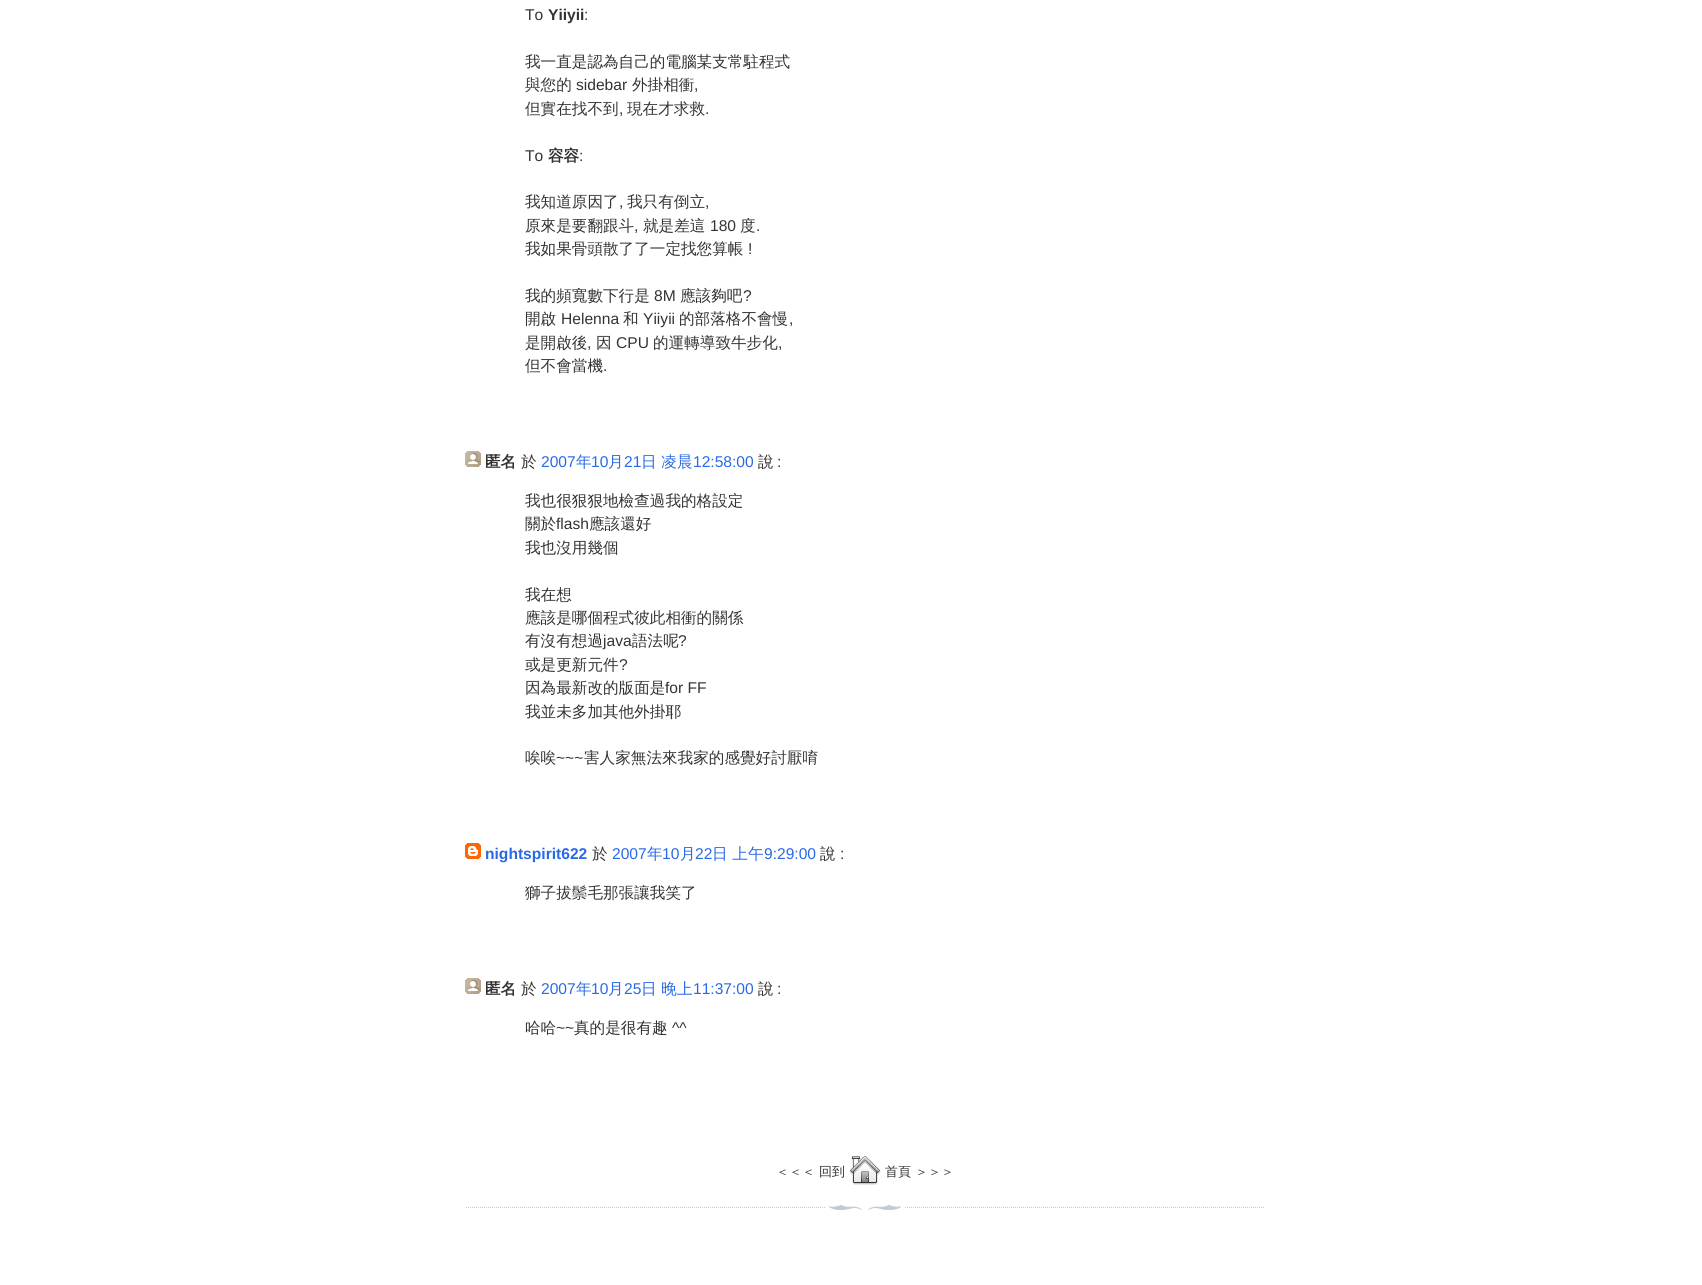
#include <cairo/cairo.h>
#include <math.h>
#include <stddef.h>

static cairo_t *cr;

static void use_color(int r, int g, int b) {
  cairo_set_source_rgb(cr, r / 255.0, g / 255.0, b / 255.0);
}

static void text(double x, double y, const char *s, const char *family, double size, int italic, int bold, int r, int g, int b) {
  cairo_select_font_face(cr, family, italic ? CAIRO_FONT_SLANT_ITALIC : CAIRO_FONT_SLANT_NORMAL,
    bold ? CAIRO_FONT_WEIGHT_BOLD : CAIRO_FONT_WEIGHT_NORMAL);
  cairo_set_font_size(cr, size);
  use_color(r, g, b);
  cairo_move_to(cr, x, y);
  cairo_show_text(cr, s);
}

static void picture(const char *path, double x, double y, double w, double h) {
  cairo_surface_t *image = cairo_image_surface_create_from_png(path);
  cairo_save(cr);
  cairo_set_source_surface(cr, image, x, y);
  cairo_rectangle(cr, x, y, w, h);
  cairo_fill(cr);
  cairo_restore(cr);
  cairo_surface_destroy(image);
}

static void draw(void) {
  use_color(255, 255, 255);
  cairo_paint(cr);
  picture("img_01.png", 465, 451, 16, 16);
  picture("img_02.png", 465, 843, 16, 16);
  picture("img_01.png", 465, 978, 16, 16);
  picture("img_03.png", 849, 1156, 32, 29);
  picture("img_04.png", 466, 1205, 798, 5);
  text(525, 20, "To", "Liberation Sans", 15.6, 0, 0, 51, 51, 51);
  text(548, 20, "Yiiyii", "Liberation Sans", 15.6, 0, 1, 51, 51, 51);
  text(584, 20, ":", "Liberation Sans", 15.6, 0, 0, 51, 51, 51);
  text(525, 67, "我一直是認為自己的電腦某支常駐程式", "WenQuanYi Zen Hei Medium", 15.6, 0, 0, 51, 51, 51);
  text(525, 90, "與您的", "WenQuanYi Zen Hei Medium", 15.6, 0, 0, 51, 51, 51);
  text(576, 90, "sidebar", "Liberation Sans", 15.6, 0, 0, 51, 51, 51);
  text(632, 90, "外掛相衝", "WenQuanYi Zen Hei Medium", 15.6, 0, 0, 51, 51, 51);
  text(694, 90, ",", "Liberation Sans", 15.6, 0, 0, 51, 51, 51);
  text(525, 114, "但實在找不到", "WenQuanYi Zen Hei Medium", 15.6, 0, 0, 51, 51, 51);
  text(619, 114, ",", "Liberation Sans", 15.6, 0, 0, 51, 51, 51);
  text(627, 114, "現在才求救", "WenQuanYi Zen Hei Medium", 15.6, 0, 0, 51, 51, 51);
  text(705, 114, ".", "Liberation Sans", 15.6, 0, 0, 51, 51, 51);
  text(525, 161, "To", "Liberation Sans", 15.6, 0, 0, 51, 51, 51);
  text(548, 161, "容容", "WenQuanYi Zen Hei", 15.6, 0, 1, 51, 51, 51);
  text(579, 161, ":", "Liberation Sans", 15.6, 0, 0, 51, 51, 51);
  text(525, 207, "我知道原因了", "WenQuanYi Zen Hei Medium", 15.6, 0, 0, 51, 51, 51);
  text(619, 207, ",", "Liberation Sans", 15.6, 0, 0, 51, 51, 51);
  text(627, 207, "我只有倒立", "WenQuanYi Zen Hei Medium", 15.6, 0, 0, 51, 51, 51);
  text(705, 207, ",", "Liberation Sans", 15.6, 0, 0, 51, 51, 51);
  text(525, 231, "原來是要翻跟斗", "WenQuanYi Zen Hei Medium", 15.6, 0, 0, 51, 51, 51);
  text(634, 231, ",", "Liberation Sans", 15.6, 0, 0, 51, 51, 51);
  text(643, 231, "就是差這", "WenQuanYi Zen Hei Medium", 15.6, 0, 0, 51, 51, 51);
  text(710, 231, "180", "Liberation Sans", 15.6, 0, 0, 51, 51, 51);
  text(740, 231, "度", "WenQuanYi Zen Hei Medium", 15.6, 0, 0, 51, 51, 51);
  text(756, 231, ".", "Liberation Sans", 15.6, 0, 0, 51, 51, 51);
  text(525, 254, "我如果骨頭散了了一定找您算帳", "WenQuanYi Zen Hei Medium", 15.6, 0, 0, 51, 51, 51);
  text(748, 254, "!", "Liberation Sans", 15.6, 0, 0, 51, 51, 51);
  text(525, 301, "我的頻寬數下行是", "WenQuanYi Zen Hei Medium", 15.6, 0, 0, 51, 51, 51);
  text(654, 301, "8M", "Liberation Sans", 15.6, 0, 0, 51, 51, 51);
  text(680, 301, "應該夠吧", "WenQuanYi Zen Hei Medium", 15.6, 0, 0, 51, 51, 51);
  text(743, 301, "?", "Liberation Sans", 15.6, 0, 0, 51, 51, 51);
  text(525, 324, "開啟", "WenQuanYi Zen Hei Medium", 15.6, 0, 0, 51, 51, 51);
  text(561, 324, "Helenna", "Liberation Sans", 15.6, 0, 0, 51, 51, 51);
  text(623, 324, "和", "WenQuanYi Zen Hei Medium", 15.6, 0, 0, 51, 51, 51);
  text(643, 324, "Yiiyii", "Liberation Sans", 15.6, 0, 0, 51, 51, 51);
  text(679, 324, "的部落格不會慢", "WenQuanYi Zen Hei Medium", 15.6, 0, 0, 51, 51, 51);
  text(789, 324, ",", "Liberation Sans", 15.6, 0, 0, 51, 51, 51);
  text(525, 348, "是開啟後", "WenQuanYi Zen Hei Medium", 15.6, 0, 0, 51, 51, 51);
  text(587, 348, ",", "Liberation Sans", 15.6, 0, 0, 51, 51, 51);
  text(596, 348, "因", "WenQuanYi Zen Hei Medium", 15.6, 0, 0, 51, 51, 51);
  text(616, 348, "CPU", "Liberation Sans", 15.6, 0, 0, 51, 51, 51);
  text(653, 348, "的運轉導致牛步化", "WenQuanYi Zen Hei Medium", 15.6, 0, 0, 51, 51, 51);
  text(778, 348, ",", "Liberation Sans", 15.6, 0, 0, 51, 51, 51);
  text(525, 371, "但不會當機", "WenQuanYi Zen Hei Medium", 15.6, 0, 0, 51, 51, 51);
  text(603, 371, ".", "Liberation Sans", 15.6, 0, 0, 51, 51, 51);
  text(485, 467, "匿名", "WenQuanYi Zen Hei", 15.6, 0, 1, 51, 51, 51);
  text(521, 467, "於", "WenQuanYi Zen Hei Medium", 15.6, 0, 0, 51, 51, 51);
  text(541, 467, "2007", "Liberation Sans", 15.6, 0, 0, 40, 105, 231);
  text(576, 467, "年", "WenQuanYi Zen Hei Medium", 15.6, 0, 0, 40, 105, 231);
  text(591, 467, "10", "Liberation Sans", 15.6, 0, 0, 40, 105, 231);
  text(608, 467, "月", "WenQuanYi Zen Hei Medium", 15.6, 0, 0, 40, 105, 231);
  text(624, 467, "21", "Liberation Sans", 15.6, 0, 0, 40, 105, 231);
  text(641, 467, "日 凌晨", "WenQuanYi Zen Hei Medium", 15.6, 0, 0, 40, 105, 231);
  text(693, 467, "12:58:00", "Liberation Sans", 15.6, 0, 0, 40, 105, 231);
  text(758, 467, "說", "WenQuanYi Zen Hei Medium", 15.6, 0, 0, 51, 51, 51);
  text(777, 467, ":", "Liberation Sans", 15.6, 0, 0, 51, 51, 51);
  text(525, 506, "我也很狠狠地檢查過我的格設定", "WenQuanYi Zen Hei Medium", 15.6, 0, 0, 51, 51, 51);
  text(525, 529, "關於", "WenQuanYi Zen Hei Medium", 15.6, 0, 0, 51, 51, 51);
  text(556, 529, "flash", "Liberation Sans", 15.6, 0, 0, 51, 51, 51);
  text(589, 529, "應該還好", "WenQuanYi Zen Hei Medium", 15.6, 0, 0, 51, 51, 51);
  text(525, 553, "我也沒用幾個", "WenQuanYi Zen Hei Medium", 15.6, 0, 0, 51, 51, 51);
  text(525, 600, "我在想", "WenQuanYi Zen Hei Medium", 15.6, 0, 0, 51, 51, 51);
  text(525, 623, "應該是哪個程式彼此相衝的關係", "WenQuanYi Zen Hei Medium", 15.6, 0, 0, 51, 51, 51);
  text(525, 646, "有沒有想過", "WenQuanYi Zen Hei Medium", 15.6, 0, 0, 51, 51, 51);
  text(603, 646, "java", "Liberation Sans", 15.6, 0, 0, 51, 51, 51);
  text(632, 646, "語法呢", "WenQuanYi Zen Hei Medium", 15.6, 0, 0, 51, 51, 51);
  text(678, 646, "?", "Liberation Sans", 15.6, 0, 0, 51, 51, 51);
  text(525, 670, "或是更新元件", "WenQuanYi Zen Hei Medium", 15.6, 0, 0, 51, 51, 51);
  text(619, 670, "?", "Liberation Sans", 15.6, 0, 0, 51, 51, 51);
  text(525, 693, "因為最新改的版面是", "WenQuanYi Zen Hei Medium", 15.6, 0, 0, 51, 51, 51);
  text(665, 693, "for FF", "Liberation Sans", 15.6, 0, 0, 51, 51, 51);
  text(525, 717, "我並未多加其他外掛耶", "WenQuanYi Zen Hei Medium", 15.6, 0, 0, 51, 51, 51);
  text(525, 763, "唉唉", "WenQuanYi Zen Hei Medium", 15.6, 0, 0, 51, 51, 51);
  text(556, 763, "~~~", "Liberation Sans", 15.6, 0, 0, 51, 51, 51);
  text(584, 763, "害人家無法來我家的感覺好討厭唷", "WenQuanYi Zen Hei Medium", 15.6, 0, 0, 51, 51, 51);
  text(485, 859, "nightspirit622", "Liberation Sans", 15.6, 0, 1, 40, 105, 231);
  text(592, 859, "於", "WenQuanYi Zen Hei Medium", 15.6, 0, 0, 51, 51, 51);
  text(612, 859, "2007", "Liberation Sans", 15.6, 0, 0, 40, 105, 231);
  text(647, 859, "年", "WenQuanYi Zen Hei Medium", 15.6, 0, 0, 40, 105, 231);
  text(662, 859, "10", "Liberation Sans", 15.6, 0, 0, 40, 105, 231);
  text(680, 859, "月", "WenQuanYi Zen Hei Medium", 15.6, 0, 0, 40, 105, 231);
  text(695, 859, "22", "Liberation Sans", 15.6, 0, 0, 40, 105, 231);
  text(712, 859, "日 上午", "WenQuanYi Zen Hei Medium", 15.6, 0, 0, 40, 105, 231);
  text(764, 859, "9:29:00", "Liberation Sans", 15.6, 0, 0, 40, 105, 231);
  text(820, 859, "說", "WenQuanYi Zen Hei Medium", 15.6, 0, 0, 51, 51, 51);
  text(840, 859, ":", "Liberation Sans", 15.6, 0, 0, 51, 51, 51);
  text(525, 898, "獅子拔鬃毛那張讓我笑了", "WenQuanYi Zen Hei Medium", 15.6, 0, 0, 51, 51, 51);
  text(485, 994, "匿名", "WenQuanYi Zen Hei", 15.6, 0, 1, 51, 51, 51);
  text(521, 994, "於", "WenQuanYi Zen Hei Medium", 15.6, 0, 0, 51, 51, 51);
  text(541, 994, "2007", "Liberation Sans", 15.6, 0, 0, 40, 105, 231);
  text(576, 994, "年", "WenQuanYi Zen Hei Medium", 15.6, 0, 0, 40, 105, 231);
  text(591, 994, "10", "Liberation Sans", 15.6, 0, 0, 40, 105, 231);
  text(608, 994, "月", "WenQuanYi Zen Hei Medium", 15.6, 0, 0, 40, 105, 231);
  text(624, 994, "25", "Liberation Sans", 15.6, 0, 0, 40, 105, 231);
  text(641, 994, "日 晚上", "WenQuanYi Zen Hei Medium", 15.6, 0, 0, 40, 105, 231);
  text(693, 994, "11:37:00", "Liberation Sans", 15.6, 0, 0, 40, 105, 231);
  text(758, 994, "說", "WenQuanYi Zen Hei Medium", 15.6, 0, 0, 51, 51, 51);
  text(777, 994, ":", "Liberation Sans", 15.6, 0, 0, 51, 51, 51);
  text(525, 1033, "哈哈", "WenQuanYi Zen Hei Medium", 15.6, 0, 0, 51, 51, 51);
  text(556, 1033, "~~", "Liberation Sans", 15.6, 0, 0, 51, 51, 51);
  text(574, 1033, "真的是很有趣", "WenQuanYi Zen Hei Medium", 15.6, 0, 0, 51, 51, 51);
  text(672, 1033, "^^", "Liberation Sans", 15.6, 0, 0, 51, 51, 51);
  text(776, 1176, "＜＜＜ 回到", "WenQuanYi Zen Hei Medium", 13, 0, 0, 51, 51, 51);
  text(885, 1176, "首頁 ＞＞＞", "WenQuanYi Zen Hei Medium", 13, 0, 0, 51, 51, 51);
}

int main(void) {
  cairo_surface_t *surface = cairo_image_surface_create(CAIRO_FORMAT_RGB24, 1702, 1285);
  cr = cairo_create(surface);
  cairo_font_options_t *options = cairo_font_options_create();
  cairo_font_options_set_hint_metrics(options, CAIRO_HINT_METRICS_OFF);
  cairo_font_options_set_hint_style(options, CAIRO_HINT_STYLE_NONE);
  cairo_set_font_options(cr, options);
  cairo_set_miter_limit(cr, 4);
  draw();
  cairo_surface_write_to_png(surface, "out.png");
  cairo_font_options_destroy(options);
  cairo_destroy(cr);
  cairo_surface_destroy(surface);
  return 0;
}
